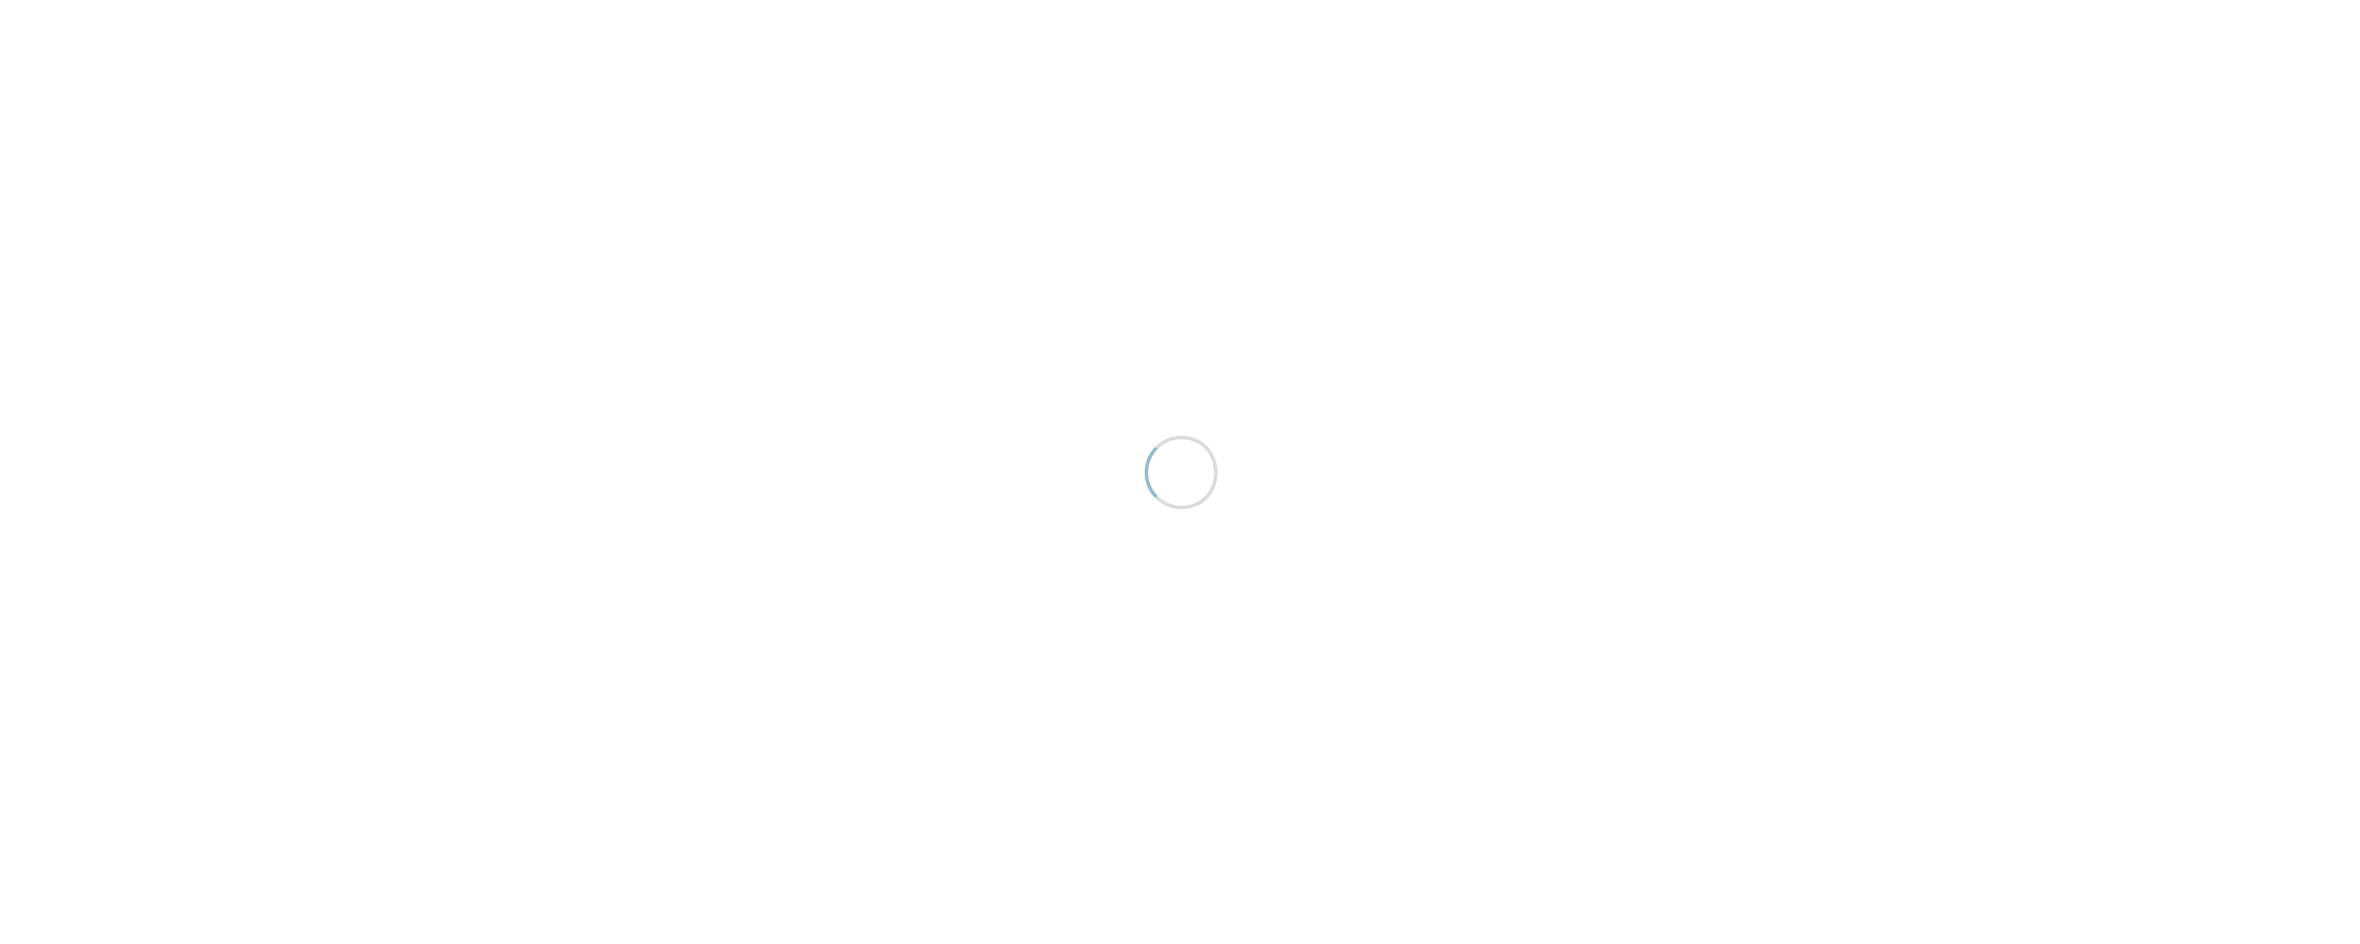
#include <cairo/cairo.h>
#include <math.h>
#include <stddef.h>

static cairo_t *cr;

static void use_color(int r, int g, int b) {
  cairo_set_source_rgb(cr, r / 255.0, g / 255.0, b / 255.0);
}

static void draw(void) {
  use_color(255, 255, 255);
  cairo_paint(cr);
  cairo_new_path(cr);
  cairo_move_to(cr, 1156.5, 448);
  cairo_curve_to(cr, 1163, 441, 1172, 437.5, 1181, 437.5);
  cairo_curve_to(cr, 1223, 437.5, 1229, 498.5, 1188, 507);
  cairo_curve_to(cr, 1176.5, 509, 1164.5, 505.5, 1156.5, 497);
  use_color(219, 219, 219);
  cairo_set_line_width(cr, 3.5);
  cairo_stroke(cr);
  cairo_new_path(cr);
  cairo_move_to(cr, 1156.5, 497);
  cairo_curve_to(cr, 1143, 484, 1143, 461, 1156.5, 448);
  use_color(147, 187, 204);
  cairo_stroke(cr);
}

int main(void) {
  cairo_surface_t *surface = cairo_image_surface_create(CAIRO_FORMAT_RGB24, 2360, 944);
  cr = cairo_create(surface);
  cairo_font_options_t *options = cairo_font_options_create();
  cairo_font_options_set_hint_metrics(options, CAIRO_HINT_METRICS_OFF);
  cairo_font_options_set_hint_style(options, CAIRO_HINT_STYLE_NONE);
  cairo_set_font_options(cr, options);
  cairo_set_miter_limit(cr, 4);
  draw();
  cairo_surface_write_to_png(surface, "out.png");
  cairo_font_options_destroy(options);
  cairo_destroy(cr);
  cairo_surface_destroy(surface);
  return 0;
}
